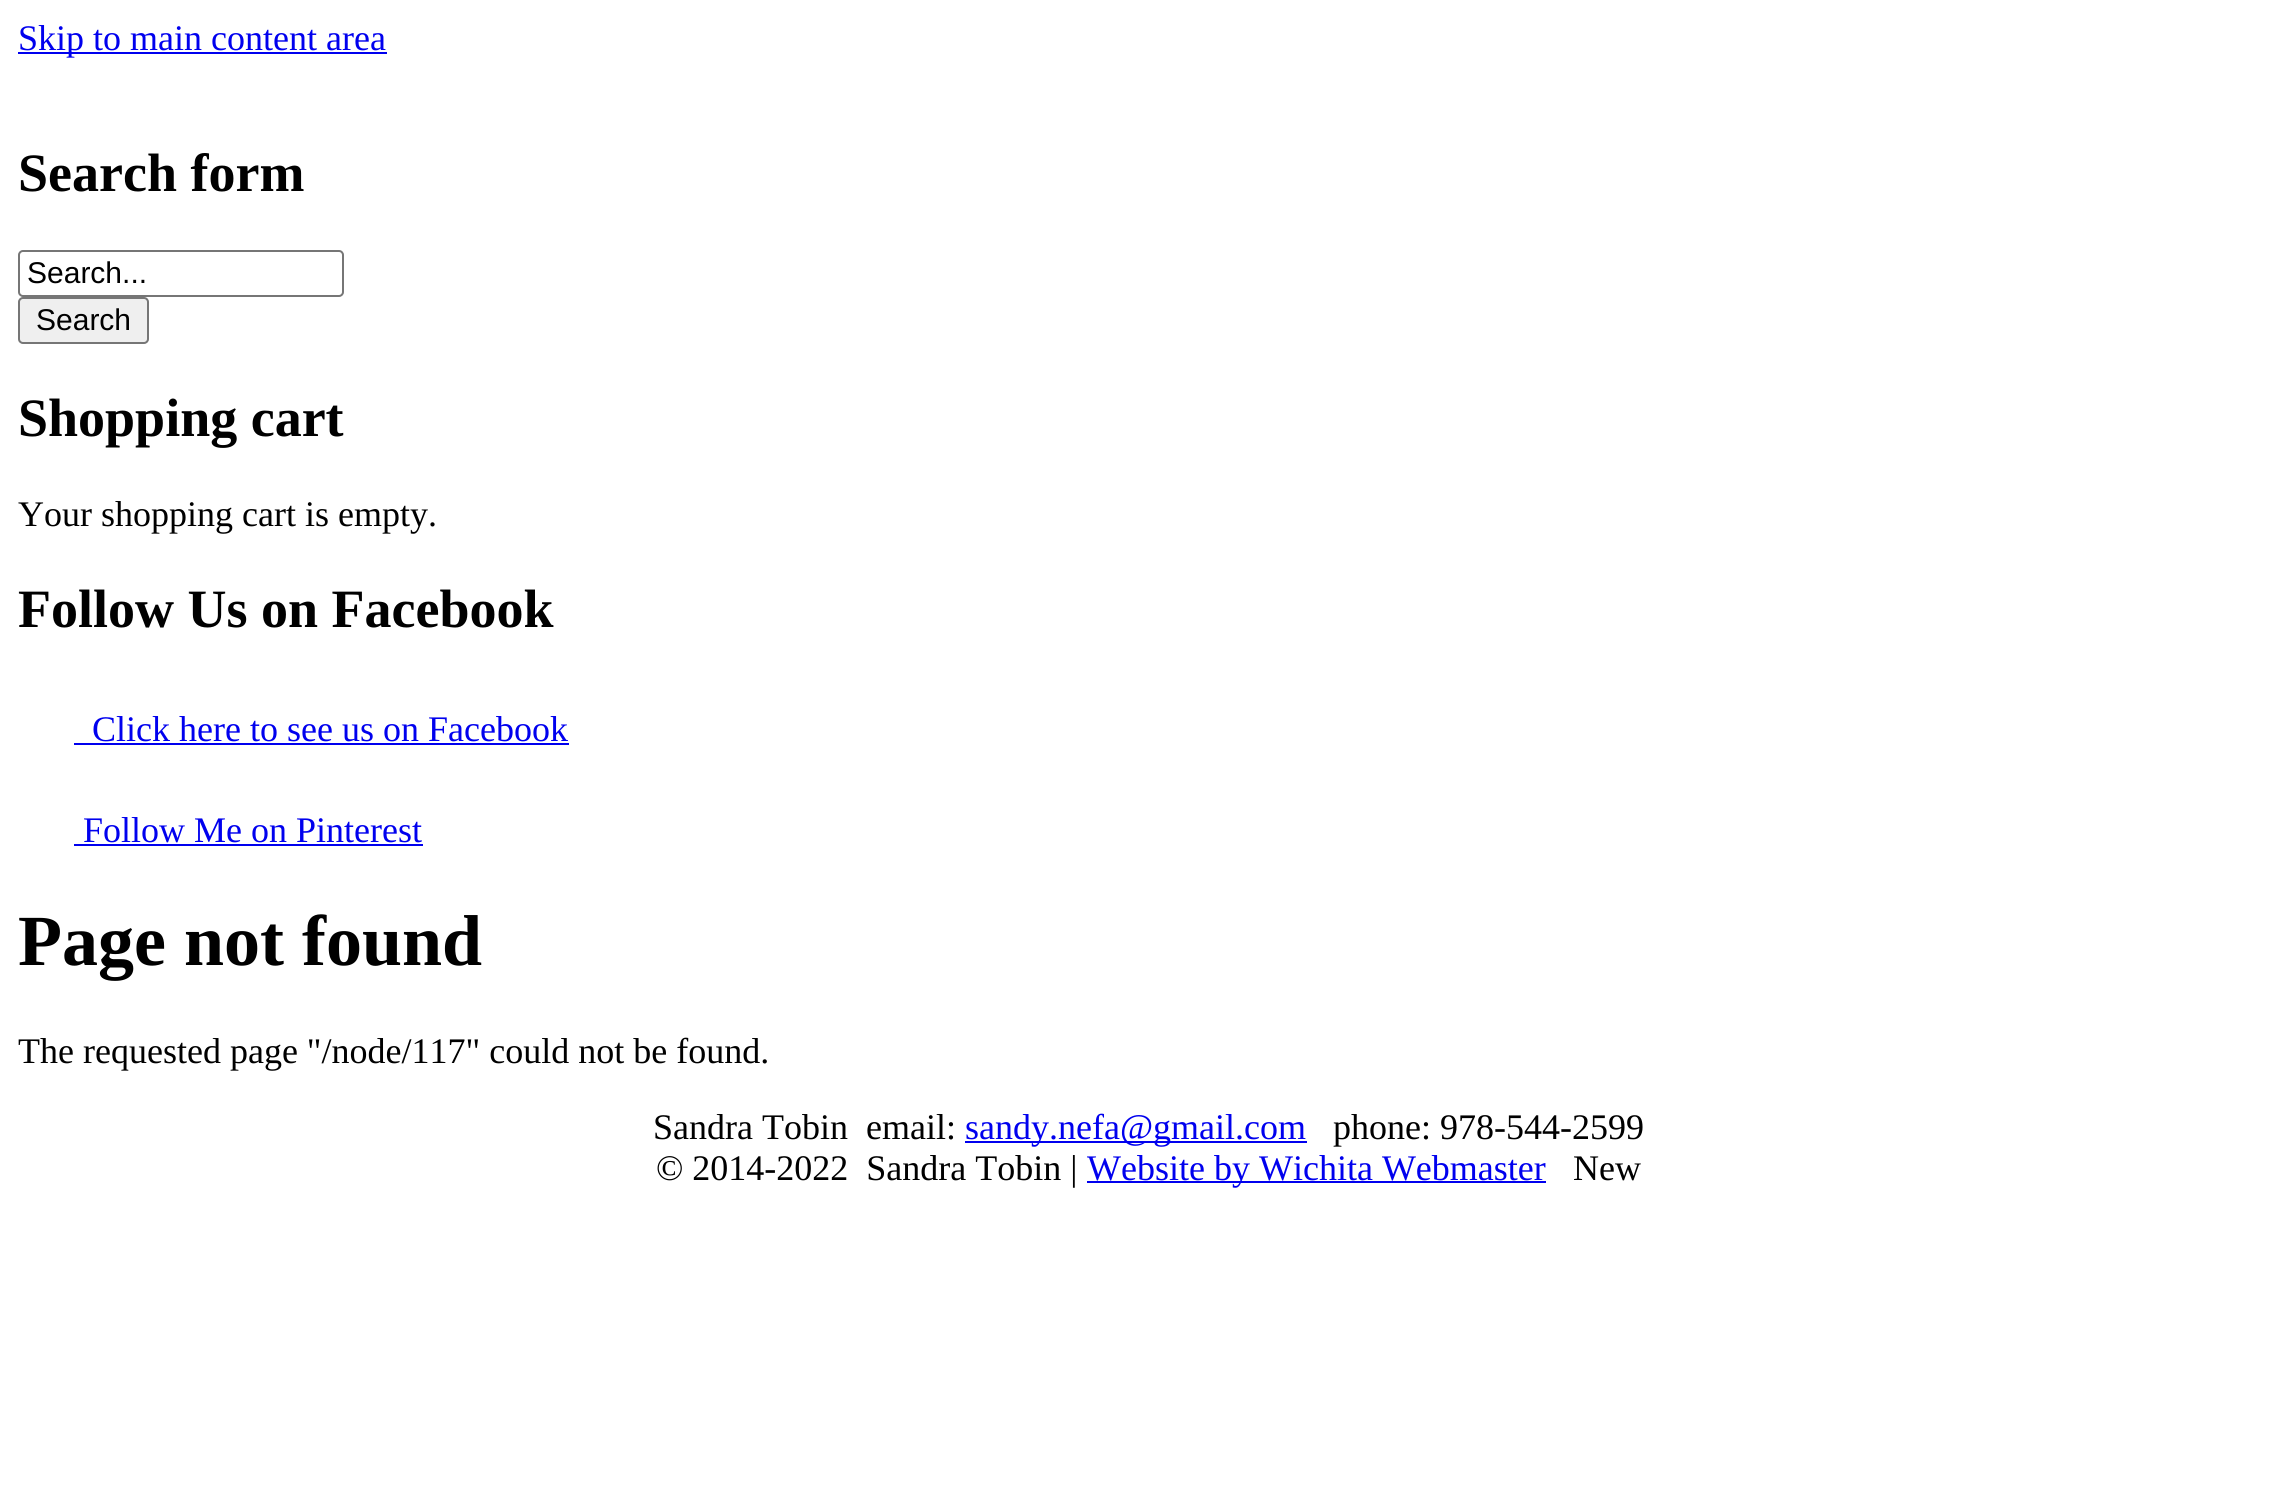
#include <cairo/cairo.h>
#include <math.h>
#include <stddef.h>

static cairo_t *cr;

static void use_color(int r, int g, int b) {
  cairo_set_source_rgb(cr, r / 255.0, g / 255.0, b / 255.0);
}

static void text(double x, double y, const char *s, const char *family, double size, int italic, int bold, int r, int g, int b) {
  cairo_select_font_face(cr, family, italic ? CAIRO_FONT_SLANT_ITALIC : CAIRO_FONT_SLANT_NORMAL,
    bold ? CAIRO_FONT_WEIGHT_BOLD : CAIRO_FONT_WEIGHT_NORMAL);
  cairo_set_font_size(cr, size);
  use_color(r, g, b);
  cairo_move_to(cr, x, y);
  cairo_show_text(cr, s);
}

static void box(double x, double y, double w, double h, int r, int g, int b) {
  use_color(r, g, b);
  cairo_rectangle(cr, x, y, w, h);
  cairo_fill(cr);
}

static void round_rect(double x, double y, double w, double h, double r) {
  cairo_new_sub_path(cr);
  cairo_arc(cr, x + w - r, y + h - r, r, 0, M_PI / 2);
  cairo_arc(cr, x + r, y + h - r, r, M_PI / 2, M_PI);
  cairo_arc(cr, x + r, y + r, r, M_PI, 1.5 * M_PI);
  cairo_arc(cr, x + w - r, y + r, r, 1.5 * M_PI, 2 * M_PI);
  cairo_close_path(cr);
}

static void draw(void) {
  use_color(255, 255, 255);
  cairo_paint(cr);
  box(18, 52, 369, 2, 0, 0, 238);
  round_rect(19, 251, 324, 45, 4);
  use_color(118, 118, 118);
  cairo_stroke(cr);
  use_color(239, 239, 239);
  round_rect(19, 298, 129, 45, 4);
  cairo_fill_preserve(cr);
  use_color(118, 118, 118);
  cairo_stroke(cr);
  box(74, 743, 495, 2, 0, 0, 238);
  box(74, 844, 349, 2, 0, 0, 238);
  box(965, 1141, 342, 2, 0, 0, 238);
  box(1087, 1181, 459, 2, 0, 0, 238);
  text(18, 50, "Skip to main content area", "Liberation Serif", 36, 0, 0, 0, 0, 238);
  text(18, 191, "Search form", "Liberation Serif", 54, 0, 1, 0, 0, 0);
  text(27, 283, "Search...", "Liberation Sans", 30, 0, 0, 0, 0, 0);
  text(36, 330, "Search", "Liberation Sans", 30, 0, 0, 0, 0, 0);
  text(18, 436, "Shopping cart", "Liberation Serif", 54, 0, 1, 0, 0, 0);
  text(18, 526, "Your shopping cart is empty.", "Liberation Serif", 36, 0, 0, 0, 0, 0);
  text(18, 627, "Follow Us on Facebook", "Liberation Serif", 54, 0, 1, 0, 0, 0);
  text(92, 741, "Click here to see us on Facebook", "Liberation Serif", 36, 0, 0, 0, 0, 238);
  text(83, 842, "Follow Me on Pinterest", "Liberation Serif", 36, 0, 0, 0, 0, 238);
  text(18, 965, "Page not found", "Liberation Serif", 72, 0, 1, 0, 0, 0);
  text(18, 1063, "The requested page \"/node/117\" could not be found.", "Liberation Serif", 36, 0, 0, 0, 0, 0);
  text(653, 1139, "Sandra Tobin  email:", "Liberation Serif", 36, 0, 0, 0, 0, 0);
  text(965, 1139, "sandy.nefa@gmail.com", "Liberation Serif", 36, 0, 0, 0, 0, 238);
  text(1333, 1139, "phone: 978-544-2599", "Liberation Serif", 36, 0, 0, 0, 0, 0);
  text(656, 1180, "© 2014-2022  Sandra Tobin |", "Liberation Serif", 36, 0, 0, 0, 0, 0);
  text(1087, 1180, "Website by Wichita Webmaster", "Liberation Serif", 36, 0, 0, 0, 0, 238);
  text(1573, 1180, "New", "Liberation Serif", 36, 0, 0, 0, 0, 0);
}

int main(void) {
  cairo_surface_t *surface = cairo_image_surface_create(CAIRO_FORMAT_RGB24, 2296, 1499);
  cr = cairo_create(surface);
  cairo_font_options_t *options = cairo_font_options_create();
  cairo_font_options_set_hint_metrics(options, CAIRO_HINT_METRICS_OFF);
  cairo_font_options_set_hint_style(options, CAIRO_HINT_STYLE_NONE);
  cairo_set_font_options(cr, options);
  cairo_set_miter_limit(cr, 4);
  draw();
  cairo_surface_write_to_png(surface, "out.png");
  cairo_font_options_destroy(options);
  cairo_destroy(cr);
  cairo_surface_destroy(surface);
  return 0;
}
